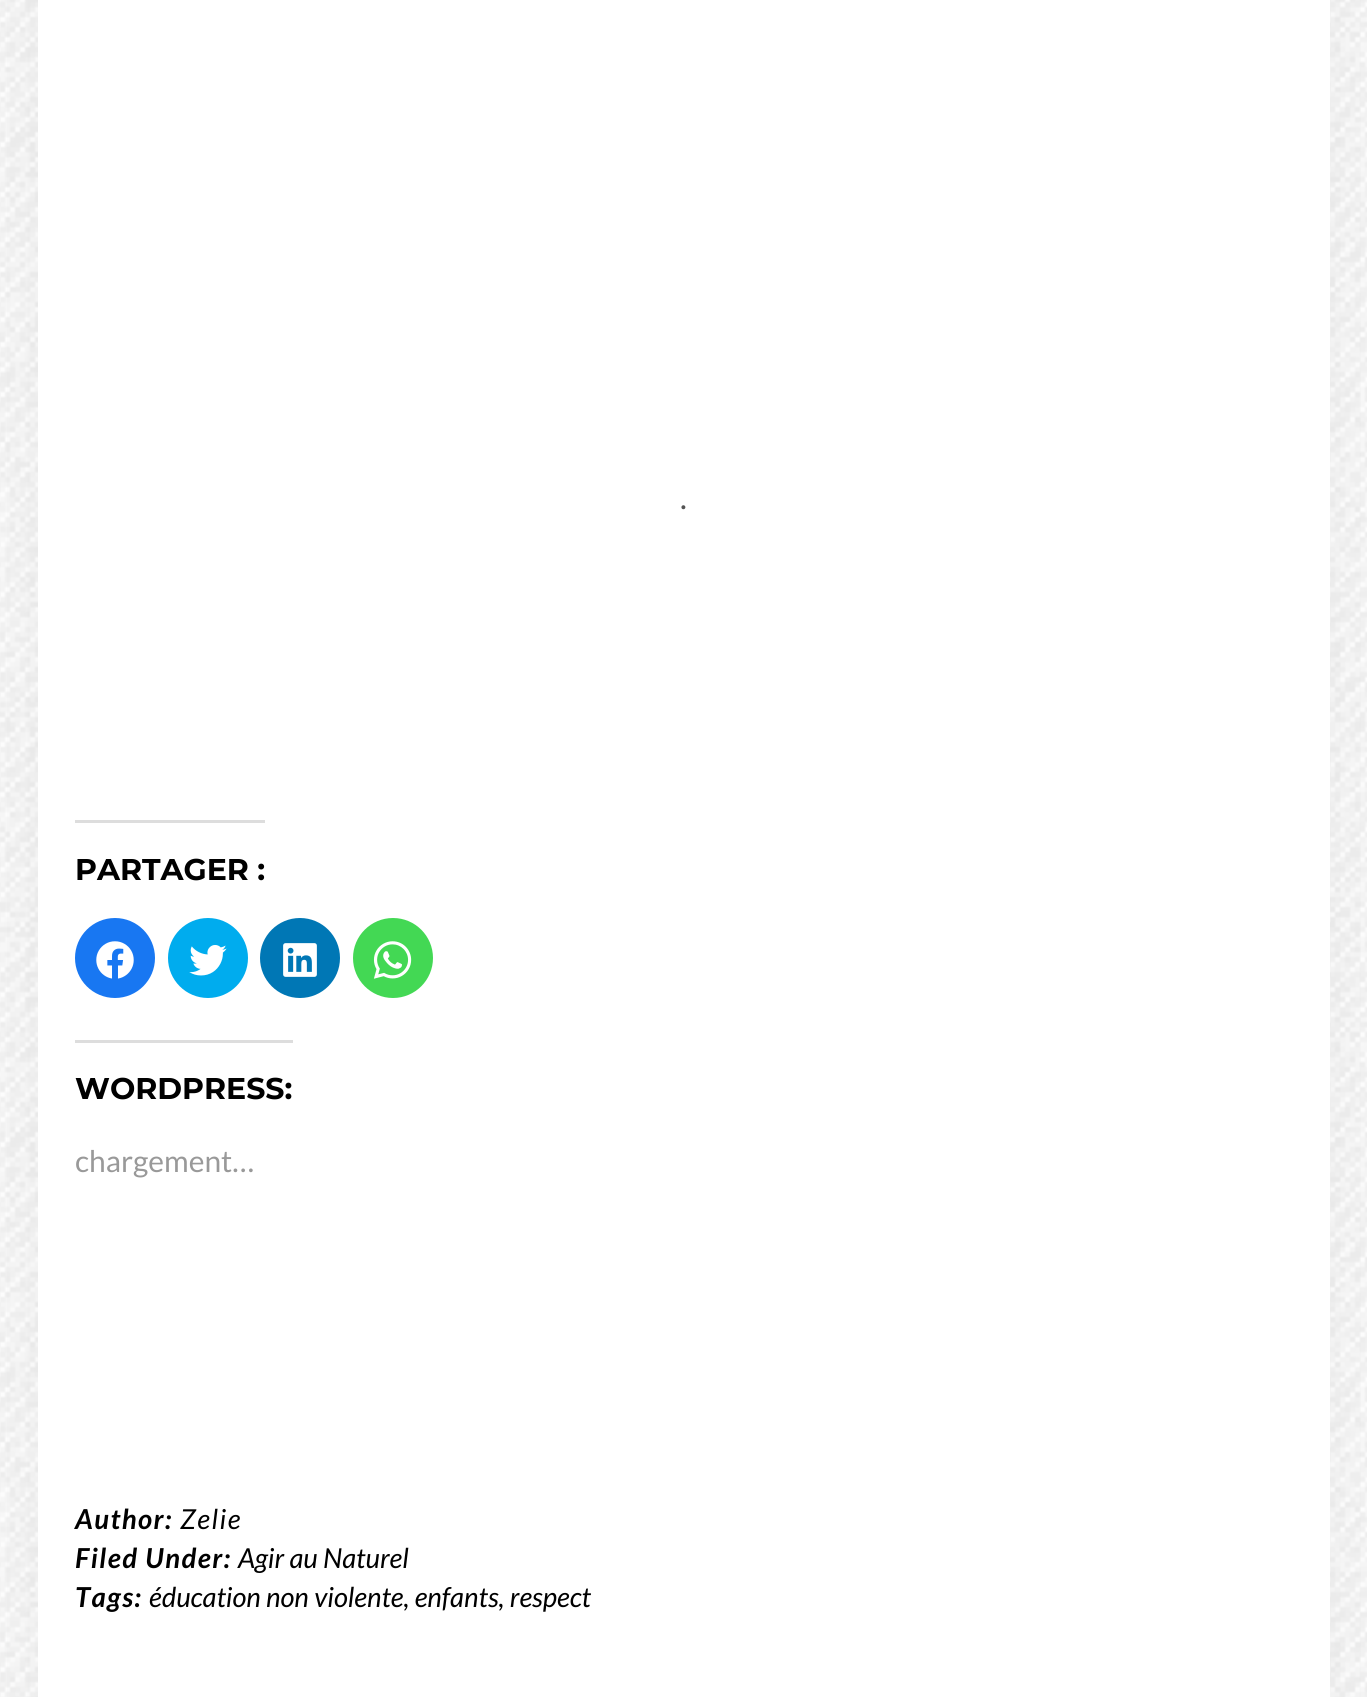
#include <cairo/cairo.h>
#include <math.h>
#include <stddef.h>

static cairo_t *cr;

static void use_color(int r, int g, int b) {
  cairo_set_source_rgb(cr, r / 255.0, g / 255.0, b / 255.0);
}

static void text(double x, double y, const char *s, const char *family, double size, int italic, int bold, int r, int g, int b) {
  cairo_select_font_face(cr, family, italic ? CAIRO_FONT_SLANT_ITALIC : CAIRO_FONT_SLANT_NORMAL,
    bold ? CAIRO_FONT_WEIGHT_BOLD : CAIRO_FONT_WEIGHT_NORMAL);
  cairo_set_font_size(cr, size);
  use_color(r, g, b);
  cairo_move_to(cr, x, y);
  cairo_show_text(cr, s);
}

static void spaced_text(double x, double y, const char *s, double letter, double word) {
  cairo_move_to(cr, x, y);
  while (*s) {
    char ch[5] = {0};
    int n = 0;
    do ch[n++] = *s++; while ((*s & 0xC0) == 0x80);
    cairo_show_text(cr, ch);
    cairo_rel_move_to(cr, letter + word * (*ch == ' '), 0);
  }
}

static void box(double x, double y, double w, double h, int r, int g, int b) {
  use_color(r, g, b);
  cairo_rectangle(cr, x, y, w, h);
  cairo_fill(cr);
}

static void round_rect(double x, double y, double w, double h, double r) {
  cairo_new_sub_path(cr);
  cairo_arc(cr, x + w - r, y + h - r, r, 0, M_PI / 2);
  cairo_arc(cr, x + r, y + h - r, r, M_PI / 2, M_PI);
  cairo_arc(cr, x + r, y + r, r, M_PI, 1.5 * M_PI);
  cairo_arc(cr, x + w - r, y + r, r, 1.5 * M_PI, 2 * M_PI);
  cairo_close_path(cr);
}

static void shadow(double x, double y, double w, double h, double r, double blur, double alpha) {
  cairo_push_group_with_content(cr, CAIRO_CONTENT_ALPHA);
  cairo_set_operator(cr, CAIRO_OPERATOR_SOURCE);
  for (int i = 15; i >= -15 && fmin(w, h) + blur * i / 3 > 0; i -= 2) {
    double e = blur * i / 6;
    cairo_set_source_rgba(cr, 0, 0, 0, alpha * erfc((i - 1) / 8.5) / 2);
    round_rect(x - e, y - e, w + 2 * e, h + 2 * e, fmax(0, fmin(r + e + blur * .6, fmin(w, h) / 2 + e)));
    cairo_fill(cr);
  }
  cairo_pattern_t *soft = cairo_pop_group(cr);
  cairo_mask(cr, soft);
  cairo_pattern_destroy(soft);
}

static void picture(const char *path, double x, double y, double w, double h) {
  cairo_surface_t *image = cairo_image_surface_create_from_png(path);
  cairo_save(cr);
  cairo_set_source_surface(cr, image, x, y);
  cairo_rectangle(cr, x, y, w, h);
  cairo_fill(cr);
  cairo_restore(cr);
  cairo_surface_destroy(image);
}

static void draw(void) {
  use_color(255, 255, 255);
  cairo_paint(cr);
  picture("img_01.png", 0, 0, 1367, 1697);
  use_color(0, 0, 0);
  shadow(38, -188, 1292, 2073, 0, 62.5, 0.06);
  box(38, 0, 1292, 1697, 255, 255, 255);
  box(75, 820, 190, 3, 221, 221, 221);
  use_color(24, 119, 242);
  cairo_arc(cr, 115, 958, 40, 0, 2 * M_PI);
  cairo_fill(cr);
  picture("img_02.png", 96, 941, 38, 38);
  use_color(0, 172, 238);
  cairo_arc(cr, 208, 958, 40, 0, 2 * M_PI);
  cairo_fill(cr);
  picture("img_03.png", 189, 945, 38, 31);
  use_color(0, 119, 181);
  cairo_arc(cr, 300, 958, 40, 0, 2 * M_PI);
  cairo_fill(cr);
  picture("img_04.png", 283, 943, 34, 34);
  use_color(67, 216, 84);
  cairo_arc(cr, 393, 958, 40, 0, 2 * M_PI);
  cairo_fill(cr);
  picture("img_05.png", 373, 941, 39, 38);
  box(75, 1040, 218, 3, 221, 221, 221);
  text(680, 509, ".", "Lato", 32, 0, 0, 84, 84, 84);
  text(75, 880, "PARTAGER :", "Montserrat", 30, 0, 1, 0, 0, 0);
  text(75, 1099, "WORDPRESS:", "Montserrat", 30, 0, 1, 0, 0, 0);
  text(75, 1172, "chargement…", "Lato", 30, 0, 0, 153, 153, 153);
  cairo_select_font_face(cr, "Lato", CAIRO_FONT_SLANT_ITALIC, CAIRO_FONT_WEIGHT_BOLD);
  cairo_set_font_size(cr, 27.5);
  use_color(0, 0, 0);
  spaced_text(75, 1529, "Author:", 1.5, 0);
  cairo_select_font_face(cr, "Lato", CAIRO_FONT_SLANT_ITALIC, CAIRO_FONT_WEIGHT_NORMAL);
  spaced_text(180, 1529, "Zelie", 1.5, 0);
  cairo_select_font_face(cr, "Lato", CAIRO_FONT_SLANT_ITALIC, CAIRO_FONT_WEIGHT_BOLD);
  spaced_text(75, 1568, "Filed Under:", 1.5, 0);
  text(238, 1568, "Agir au Naturel", "Lato", 27.5, 1, 0, 0, 0, 0);
  cairo_select_font_face(cr, "Lato", CAIRO_FONT_SLANT_ITALIC, CAIRO_FONT_WEIGHT_BOLD);
  spaced_text(75, 1607, "Tags:", 1.5, 0);
  text(149, 1607, "éducation non violente, enfants, respect", "Lato", 27.5, 1, 0, 0, 0, 0);
}

int main(void) {
  cairo_surface_t *surface = cairo_image_surface_create(CAIRO_FORMAT_RGB24, 1367, 1697);
  cr = cairo_create(surface);
  cairo_font_options_t *options = cairo_font_options_create();
  cairo_font_options_set_hint_metrics(options, CAIRO_HINT_METRICS_OFF);
  cairo_font_options_set_hint_style(options, CAIRO_HINT_STYLE_NONE);
  cairo_set_font_options(cr, options);
  cairo_set_miter_limit(cr, 4);
  draw();
  cairo_surface_write_to_png(surface, "out.png");
  cairo_font_options_destroy(options);
  cairo_destroy(cr);
  cairo_surface_destroy(surface);
  return 0;
}
